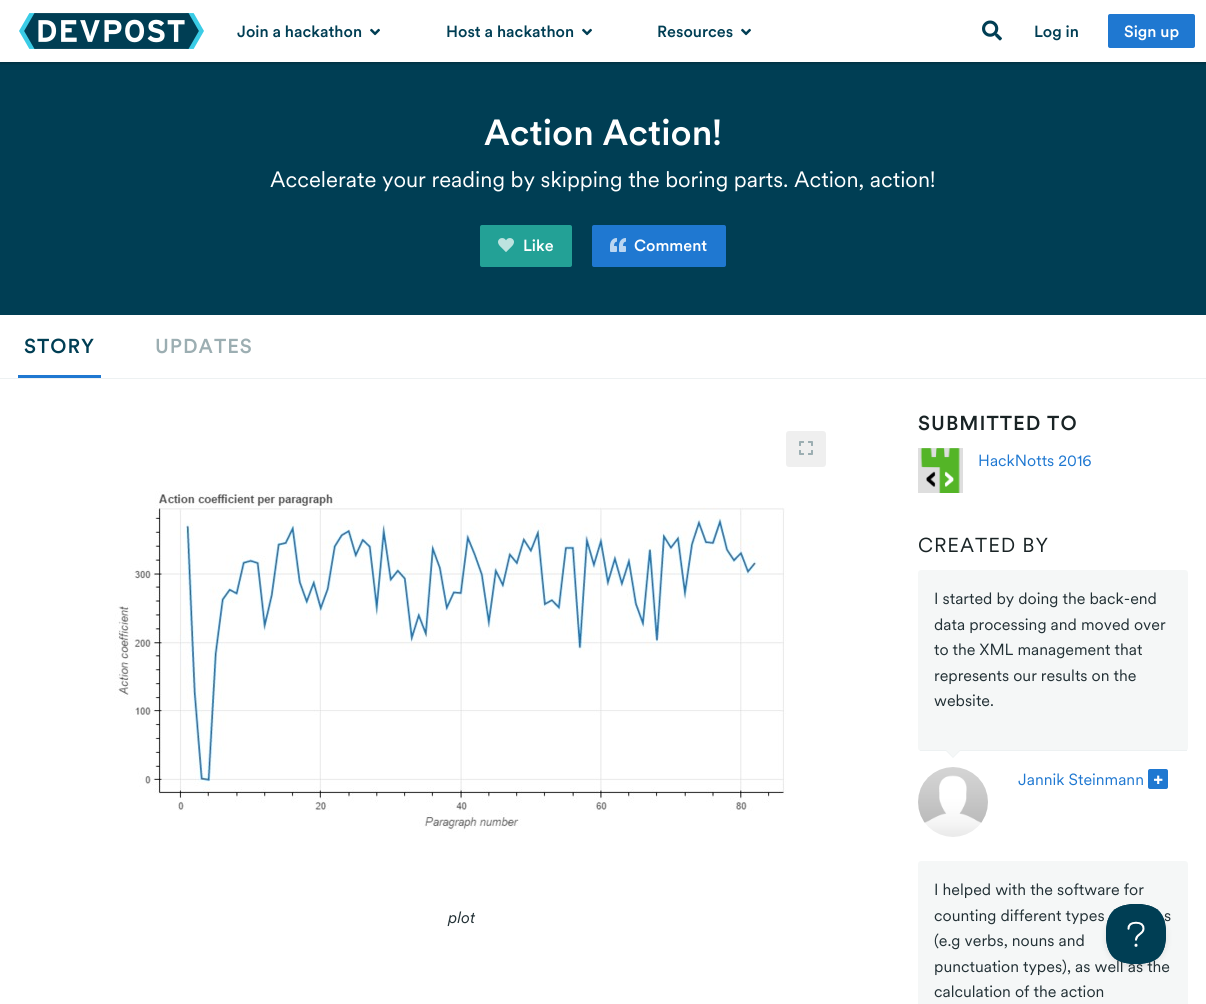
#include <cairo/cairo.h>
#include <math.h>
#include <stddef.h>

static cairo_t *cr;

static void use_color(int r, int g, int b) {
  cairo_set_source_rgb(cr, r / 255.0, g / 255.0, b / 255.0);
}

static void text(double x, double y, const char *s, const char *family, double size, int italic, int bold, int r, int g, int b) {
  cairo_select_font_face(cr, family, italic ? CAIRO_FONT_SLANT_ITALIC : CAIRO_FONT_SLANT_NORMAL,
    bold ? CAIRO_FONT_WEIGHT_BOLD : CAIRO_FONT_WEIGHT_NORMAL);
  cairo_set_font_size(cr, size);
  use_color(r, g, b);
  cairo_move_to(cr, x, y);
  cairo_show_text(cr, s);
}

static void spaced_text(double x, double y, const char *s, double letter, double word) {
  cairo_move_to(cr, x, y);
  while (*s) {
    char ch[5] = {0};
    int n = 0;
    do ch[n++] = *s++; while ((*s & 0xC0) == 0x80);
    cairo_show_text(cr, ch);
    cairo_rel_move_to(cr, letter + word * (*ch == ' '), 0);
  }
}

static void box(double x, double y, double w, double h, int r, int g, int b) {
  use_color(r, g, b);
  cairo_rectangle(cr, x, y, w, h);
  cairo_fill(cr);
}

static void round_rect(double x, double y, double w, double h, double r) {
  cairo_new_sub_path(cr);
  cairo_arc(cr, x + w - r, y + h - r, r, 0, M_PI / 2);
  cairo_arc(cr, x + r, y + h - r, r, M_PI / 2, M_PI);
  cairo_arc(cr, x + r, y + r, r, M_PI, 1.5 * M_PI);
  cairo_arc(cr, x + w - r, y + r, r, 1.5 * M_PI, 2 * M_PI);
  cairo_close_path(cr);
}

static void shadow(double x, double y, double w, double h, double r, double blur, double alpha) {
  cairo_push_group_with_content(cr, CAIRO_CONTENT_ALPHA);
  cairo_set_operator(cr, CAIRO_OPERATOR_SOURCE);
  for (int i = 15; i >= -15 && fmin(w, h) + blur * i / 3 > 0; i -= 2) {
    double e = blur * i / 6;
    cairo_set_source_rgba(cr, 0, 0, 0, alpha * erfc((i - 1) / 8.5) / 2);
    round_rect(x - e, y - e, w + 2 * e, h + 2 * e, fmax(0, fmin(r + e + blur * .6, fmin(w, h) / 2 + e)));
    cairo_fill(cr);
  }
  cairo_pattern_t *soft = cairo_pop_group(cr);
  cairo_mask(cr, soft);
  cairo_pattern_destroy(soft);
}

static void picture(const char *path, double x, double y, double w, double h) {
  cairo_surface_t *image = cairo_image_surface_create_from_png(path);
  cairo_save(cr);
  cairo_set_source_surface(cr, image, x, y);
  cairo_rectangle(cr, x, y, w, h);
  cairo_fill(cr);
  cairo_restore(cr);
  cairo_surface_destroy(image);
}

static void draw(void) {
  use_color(255, 255, 255);
  cairo_paint(cr);
  box(0, 62, 1206, 253, 0, 62, 84);
  cairo_save(cr);
  cairo_rectangle(cr, 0, 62, 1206, 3);
  cairo_clip(cr);
  use_color(0, 0, 0);
  shadow(0, 1, 1206, 62, 0, 1.5, 0.3);
  cairo_restore(cr);
  picture("img_01.png", 19, 13, 185, 36);
  picture("img_02.png", 370, 28, 10, 8);
  picture("img_02.png", 582, 28, 10, 8);
  picture("img_02.png", 741, 28, 10, 8);
  picture("img_03.png", 982, 20, 20, 21);
  use_color(31, 120, 209);
  round_rect(1108, 14, 87, 34, 2);
  cairo_fill(cr);
  use_color(35, 161, 150);
  round_rect(480, 225, 92, 42, 2);
  cairo_fill(cr);
  picture("img_04.png", 498, 238, 16, 14);
  use_color(31, 120, 209);
  round_rect(592, 225, 134, 42, 2);
  cairo_fill(cr);
  picture("img_05.png", 610, 238, 16, 14);
  box(0, 378, 1206, 1, 237, 241, 242);
  box(18, 375, 83, 3, 31, 120, 209);
  use_color(239, 239, 239);
  round_rect(786, 431, 40, 36, 3);
  cairo_fill(cr);
  picture("img_06.png", 799, 441, 14, 14);
  picture("img_07.png", 114, 491, 672, 341);
  picture("img_08.png", 918, 448, 45, 45);
  use_color(245, 247, 247);
  round_rect(918, 570, 270, 181, 3);
  cairo_fill(cr);
  box(920, 750, 267, 1, 237, 241, 242);
  cairo_new_path(cr);
  cairo_move_to(cr, 945, 750);
  cairo_line_to(cr, 961, 750);
  cairo_line_to(cr, 953, 758);
  cairo_close_path(cr);
  cairo_fill(cr);
  use_color(245, 247, 247);
  cairo_new_path(cr);
  cairo_move_to(cr, 946, 750);
  cairo_line_to(cr, 960, 750);
  cairo_line_to(cr, 953, 757);
  cairo_close_path(cr);
  cairo_fill(cr);
  picture("img_09.png", 918, 767, 70, 70);
  use_color(31, 120, 209);
  round_rect(1148, 769, 20, 20, 2);
  cairo_fill(cr);
  picture("img_10.png", 1154, 775, 9, 9);
  use_color(245, 247, 247);
  round_rect(918, 861, 270, 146, 3);
  cairo_fill(cr);
  use_color(0, 0, 0);
  shadow(1106, 908, 60, 60, 30, 3.5, 0.1);
  text(237, 37, "Join a hackathon", "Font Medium", 16, 0, 0, 0, 62, 84);
  text(446, 37, "Host a hackathon", "Font Medium", 16, 0, 0, 0, 62, 84);
  text(657, 37, "Resources", "Font Medium", 16, 0, 0, 0, 62, 84);
  text(1034, 37, "Log in", "Font Medium", 16, 0, 0, 0, 62, 84);
  text(1124, 37, "Sign up", "Font Medium", 16, 0, 0, 255, 255, 255);
  text(484, 145, "Action Action!", "Font Medium", 36, 0, 0, 255, 255, 255);
  text(270, 187, "Accelerate your reading by skipping the boring parts. Action, action!", "Font", 22, 0, 0, 255, 255, 255);
  text(523, 251, "Like", "Font Medium", 16, 0, 0, 255, 255, 255);
  text(634, 251, "Comment", "Font Medium", 16, 0, 0, 255, 255, 255);
  cairo_set_font_size(cr, 20);
  use_color(0, 62, 84);
  spaced_text(24, 353, "STORY", 1, 0);
  use_color(156, 174, 178);
  spaced_text(155, 353, "UPDATES", 1, 0);
  text(448, 923, "plot", "Font", 16, 1, 0, 35, 49, 54);
  cairo_select_font_face(cr, "Font Medium", CAIRO_FONT_SLANT_NORMAL, CAIRO_FONT_WEIGHT_NORMAL);
  cairo_set_font_size(cr, 20);
  use_color(25, 35, 37);
  spaced_text(918, 430, "SUBMITTED TO", 1, 0);
  text(978, 466, "HackNotts 2016", "Font", 16, 0, 0, 31, 120, 209);
  cairo_set_font_size(cr, 20);
  use_color(25, 35, 37);
  spaced_text(918, 552, "CREATED BY", 1, 0);
  text(934, 604, "I started by doing the back-end", "Font", 16, 0, 0, 35, 49, 54);
  text(934, 630, "data processing and moved over", "Font", 16, 0, 0, 35, 49, 54);
  text(934, 655, "to the XML management that", "Font", 16, 0, 0, 35, 49, 54);
  text(934, 681, "represents our results on the", "Font", 16, 0, 0, 35, 49, 54);
  text(934, 706, "website.", "Font", 16, 0, 0, 35, 49, 54);
  text(1018, 785, "Jannik Steinmann", "Font", 16, 0, 0, 31, 120, 209);
  text(934, 895, "I helped with the software for", "Font", 16, 0, 0, 35, 49, 54);
  text(934, 921, "counting different types", "Font", 16, 0, 0, 35, 49, 54);
  text(1164, 921, "s", "Font", 16, 0, 0, 35, 49, 54);
  text(934, 946, "(e.g verbs, nouns and", "Font", 16, 0, 0, 35, 49, 54);
  text(934, 972, "punctuation types), as well as the", "Font", 16, 0, 0, 35, 49, 54);
  text(934, 997, "calculation of the action", "Font", 16, 0, 0, 35, 49, 54);
  picture("img_11.png", 1106, 904, 60, 60);
}

int main(void) {
  cairo_surface_t *surface = cairo_image_surface_create(CAIRO_FORMAT_RGB24, 1206, 1004);
  cr = cairo_create(surface);
  cairo_font_options_t *options = cairo_font_options_create();
  cairo_font_options_set_hint_metrics(options, CAIRO_HINT_METRICS_OFF);
  cairo_font_options_set_hint_style(options, CAIRO_HINT_STYLE_NONE);
  cairo_set_font_options(cr, options);
  cairo_set_miter_limit(cr, 4);
  draw();
  cairo_surface_write_to_png(surface, "out.png");
  cairo_font_options_destroy(options);
  cairo_destroy(cr);
  cairo_surface_destroy(surface);
  return 0;
}
